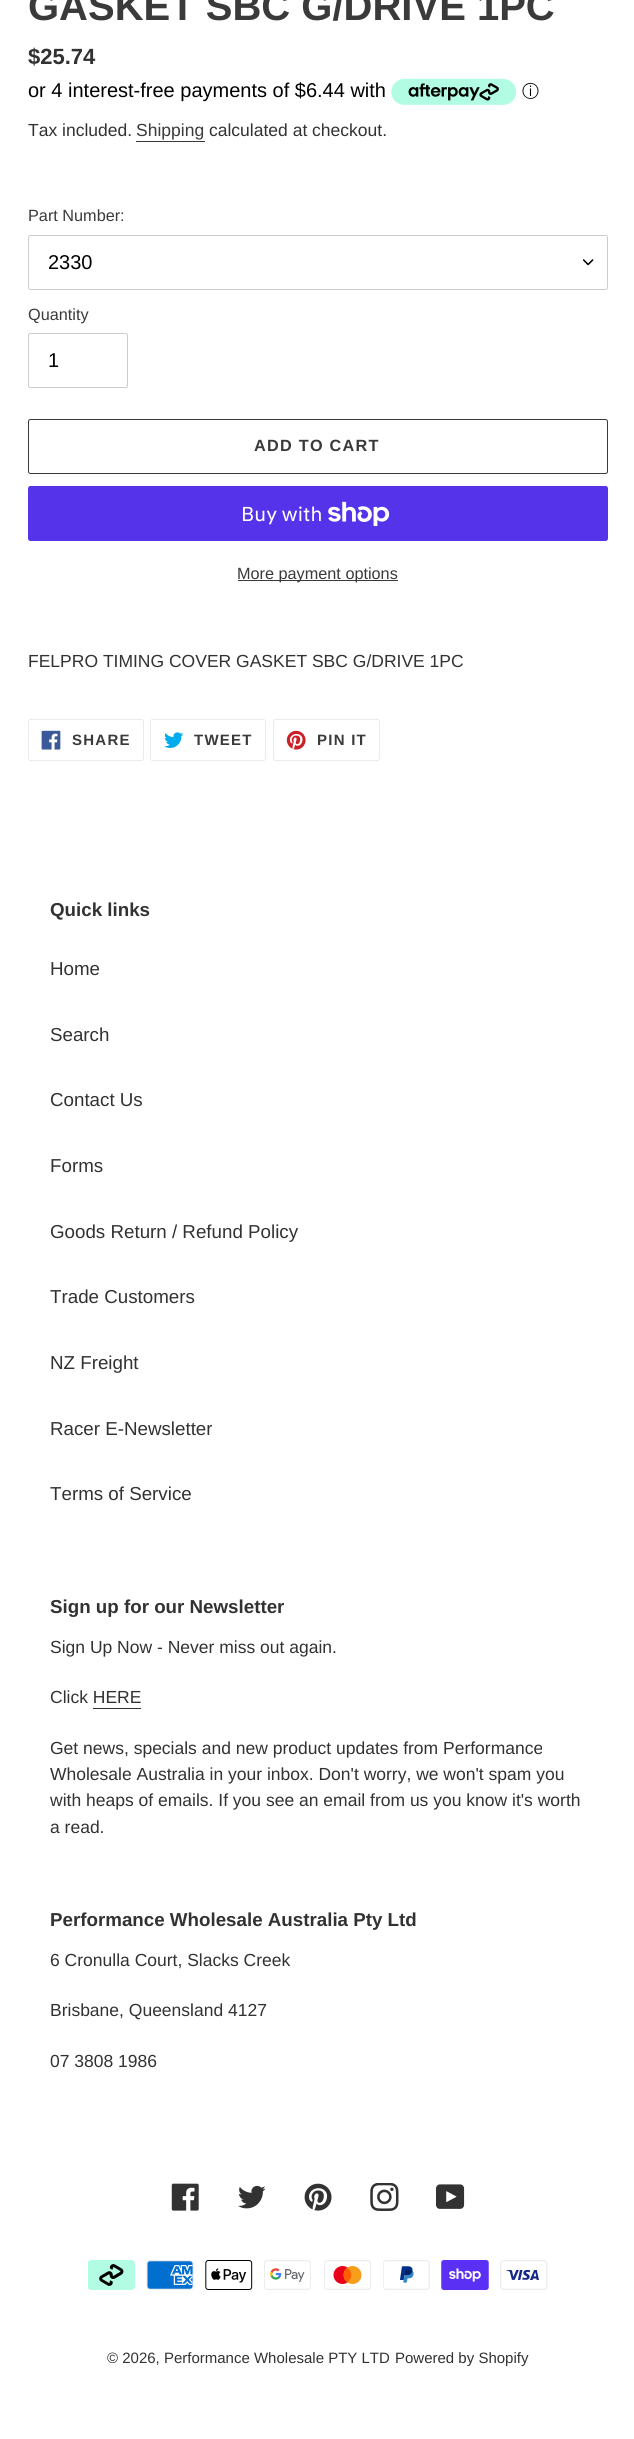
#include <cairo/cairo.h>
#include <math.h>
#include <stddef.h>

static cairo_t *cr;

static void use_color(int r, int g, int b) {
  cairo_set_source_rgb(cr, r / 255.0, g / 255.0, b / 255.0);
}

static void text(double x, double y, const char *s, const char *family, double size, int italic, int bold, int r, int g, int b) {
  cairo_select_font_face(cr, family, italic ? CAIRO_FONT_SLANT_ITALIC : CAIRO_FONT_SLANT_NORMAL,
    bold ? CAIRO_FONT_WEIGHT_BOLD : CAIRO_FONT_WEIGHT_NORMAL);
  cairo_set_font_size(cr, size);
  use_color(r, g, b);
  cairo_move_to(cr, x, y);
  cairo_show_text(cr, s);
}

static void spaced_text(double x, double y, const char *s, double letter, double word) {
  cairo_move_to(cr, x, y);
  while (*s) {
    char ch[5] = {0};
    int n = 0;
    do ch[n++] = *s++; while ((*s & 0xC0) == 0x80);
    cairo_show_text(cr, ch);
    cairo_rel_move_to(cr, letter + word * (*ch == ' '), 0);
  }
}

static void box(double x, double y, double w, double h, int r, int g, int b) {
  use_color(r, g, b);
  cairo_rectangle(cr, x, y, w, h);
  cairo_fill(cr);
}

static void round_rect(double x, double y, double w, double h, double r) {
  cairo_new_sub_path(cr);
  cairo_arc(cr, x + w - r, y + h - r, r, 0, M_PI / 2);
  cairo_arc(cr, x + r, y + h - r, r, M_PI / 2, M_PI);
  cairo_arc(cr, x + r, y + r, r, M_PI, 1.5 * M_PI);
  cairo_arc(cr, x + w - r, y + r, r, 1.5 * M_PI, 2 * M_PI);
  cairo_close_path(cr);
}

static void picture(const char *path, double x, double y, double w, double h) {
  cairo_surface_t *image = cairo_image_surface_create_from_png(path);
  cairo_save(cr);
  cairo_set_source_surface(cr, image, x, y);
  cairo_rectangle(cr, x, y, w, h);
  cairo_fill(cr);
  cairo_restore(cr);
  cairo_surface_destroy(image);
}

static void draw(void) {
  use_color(255, 255, 255);
  cairo_paint(cr);
  picture("img_01.png", 391, 78, 125, 27);
  box(136, 141, 69, 1, 58, 58, 58);
  picture("img_02.png", 583, 259, 11, 7);
  round_rect(28.5, 235.5, 579, 54, 2);
  use_color(204, 204, 204);
  cairo_set_line_width(cr, 1);
  cairo_stroke(cr);
  round_rect(28.5, 333.5, 99, 54, 2);
  cairo_stroke(cr);
  round_rect(28.5, 419.5, 579, 54, 2);
  use_color(58, 58, 58);
  cairo_stroke(cr);
  use_color(84, 51, 235);
  round_rect(28, 486, 580, 55, 2.5);
  cairo_fill(cr);
  picture("img_03.png", 328, 501, 62, 25);
  box(238, 580, 160, 1, 58, 58, 58);
  round_rect(28.5, 719.5, 115, 41, 2);
  use_color(235, 235, 235);
  cairo_stroke(cr);
  picture("img_04.png", 41, 730, 20, 20);
  round_rect(150.5, 719.5, 115, 41, 2);
  cairo_stroke(cr);
  picture("img_05.png", 164, 732, 20, 16);
  round_rect(273.5, 719.5, 106, 41, 2);
  cairo_stroke(cr);
  picture("img_06.png", 286, 730, 20, 20);
  box(93, 1708, 48, 1, 51, 50, 50);
  picture("img_07.png", 171, 2183, 28, 28);
  picture("img_08.png", 238, 2185, 28, 24);
  picture("img_09.png", 304, 2183, 28, 28);
  picture("img_10.png", 370, 2183, 29, 28);
  picture("img_11.png", 436, 2184, 29, 25);
  picture("img_12.png", 88, 2260, 47, 30);
  picture("img_13.png", 146, 2260, 48, 30);
  picture("img_14.png", 205, 2260, 48, 30);
  picture("img_15.png", 264, 2260, 47, 30);
  picture("img_16.png", 324, 2260, 47, 30);
  picture("img_17.png", 383, 2260, 47, 30);
  picture("img_18.png", 441, 2260, 48, 30);
  picture("img_19.png", 500, 2260, 48, 30);
  text(28, 20, "GASKET SBC G/DRIVE 1PC", "Liberation Sans", 40, 0, 1, 58, 58, 58);
  text(28, 64, "$25.74", "Liberation Sans", 22, 0, 1, 51, 50, 50);
  text(28, 97, "or 4 interest-free payments of $6.44 with", "Liberation Sans", 20, 0, 0, 0, 0, 0);
  text(522, 97, "ⓘ", "WenQuanYi Zen Hei Medium", 17, 0, 0, 0, 0, 0);
  text(28, 136, "Tax included.", "Liberation Sans", 17.5, 0, 0, 51, 50, 50);
  text(136, 136, "Shipping", "Liberation Sans", 17.5, 0, 0, 58, 58, 58);
  text(209, 136, "calculated at checkout.", "Liberation Sans", 17.5, 0, 0, 51, 50, 50);
  text(28, 221, "Part Number:", "Liberation Sans", 16.25, 0, 0, 58, 58, 58);
  text(48, 269, "2330", "Liberation Sans", 20, 0, 0, 0, 0, 0);
  text(28, 320, "Quantity", "Liberation Sans", 16.25, 0, 0, 58, 58, 58);
  text(48, 367, "1", "Liberation Sans", 20, 0, 0, 0, 0, 0);
  cairo_select_font_face(cr, "Liberation Sans", CAIRO_FONT_SLANT_NORMAL, CAIRO_FONT_WEIGHT_BOLD);
  cairo_set_font_size(cr, 16.25);
  use_color(58, 58, 58);
  spaced_text(254, 451, "ADD TO CART", 1.25, 0);
  text(241, 521, "Buy with", "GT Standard", 20, 0, 0, 255, 255, 255);
  text(237, 579, "More payment options", "Liberation Sans", 16.25, 0, 0, 58, 58, 58);
  text(28, 667, "FELPRO TIMING COVER GASKET SBC G/DRIVE 1PC", "Liberation Sans", 17.5, 0, 0, 51, 50, 50);
  cairo_select_font_face(cr, "Liberation Sans", CAIRO_FONT_SLANT_NORMAL, CAIRO_FONT_WEIGHT_BOLD);
  cairo_set_font_size(cr, 15);
  use_color(58, 58, 58);
  spaced_text(72, 745, "SHARE", 1.25, 0);
  spaced_text(194, 745, "TWEET", 1.25, 0);
  spaced_text(317, 745, "PIN IT", 1.25, 0);
  text(50, 916, "Quick links", "Liberation Sans", 18.75, 0, 1, 51, 50, 50);
  text(50, 975, "Home", "Liberation Sans", 18.75, 0, 0, 51, 50, 50);
  text(50, 1041, "Search", "Liberation Sans", 18.75, 0, 0, 51, 50, 50);
  text(50, 1106, "Contact Us", "Liberation Sans", 18.75, 0, 0, 51, 50, 50);
  text(50, 1172, "Forms", "Liberation Sans", 18.75, 0, 0, 51, 50, 50);
  text(50, 1238, "Goods Return / Refund Policy", "Liberation Sans", 18.75, 0, 0, 51, 50, 50);
  text(50, 1303, "Trade Customers", "Liberation Sans", 18.75, 0, 0, 51, 50, 50);
  text(50, 1369, "NZ Freight", "Liberation Sans", 18.75, 0, 0, 51, 50, 50);
  text(50, 1435, "Racer E-Newsletter", "Liberation Sans", 18.75, 0, 0, 51, 50, 50);
  text(50, 1500, "Terms of Service", "Liberation Sans", 18.75, 0, 0, 51, 50, 50);
  text(50, 1613, "Sign up for our Newsletter", "Liberation Sans", 18.75, 0, 1, 51, 50, 50);
  text(50, 1653, "Sign Up Now - Never miss out again.", "Liberation Sans", 17.5, 0, 0, 51, 50, 50);
  text(50, 1703, "Click HERE", "Liberation Sans", 17.5, 0, 0, 51, 50, 50);
  text(50, 1754, "Get news, specials and new product updates from Performance", "Liberation Sans", 17.5, 0, 0, 51, 50, 50);
  text(50, 1780, "Wholesale Australia in your inbox. Don't worry, we won't spam you", "Liberation Sans", 17.5, 0, 0, 51, 50, 50);
  text(50, 1806, "with heaps of emails. If you see an email from us you know it's worth", "Liberation Sans", 17.5, 0, 0, 51, 50, 50);
  text(50, 1833, "a read.", "Liberation Sans", 17.5, 0, 0, 51, 50, 50);
  text(50, 1926, "Performance Wholesale Australia Pty Ltd", "Liberation Sans", 18.75, 0, 1, 51, 50, 50);
  text(50, 1966, "6 Cronulla Court, Slacks Creek", "Liberation Sans", 17.5, 0, 0, 51, 50, 50);
  text(50, 2016, "Brisbane, Queensland 4127", "Liberation Sans", 17.5, 0, 0, 51, 50, 50);
  text(50, 2067, "07 3808 1986", "Liberation Sans", 17.5, 0, 0, 51, 50, 50);
  text(107, 2363, "© 2026, Performance Wholesale PTY LTD", "Liberation Sans", 15, 0, 0, 51, 50, 50);
  text(395, 2363, "Powered by Shopify", "Liberation Sans", 15, 0, 0, 51, 50, 50);
}

int main(void) {
  cairo_surface_t *surface = cairo_image_surface_create(CAIRO_FORMAT_RGB24, 634, 2439);
  cr = cairo_create(surface);
  cairo_font_options_t *options = cairo_font_options_create();
  cairo_font_options_set_hint_metrics(options, CAIRO_HINT_METRICS_OFF);
  cairo_font_options_set_hint_style(options, CAIRO_HINT_STYLE_NONE);
  cairo_set_font_options(cr, options);
  cairo_set_miter_limit(cr, 4);
  draw();
  cairo_surface_write_to_png(surface, "out.png");
  cairo_font_options_destroy(options);
  cairo_destroy(cr);
  cairo_surface_destroy(surface);
  return 0;
}
